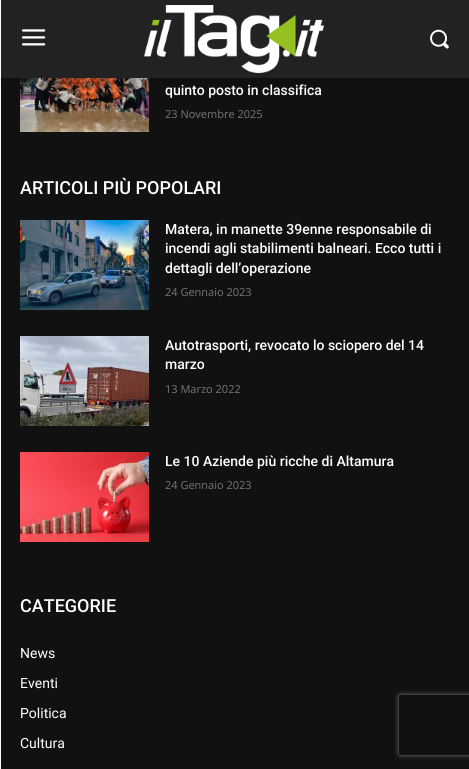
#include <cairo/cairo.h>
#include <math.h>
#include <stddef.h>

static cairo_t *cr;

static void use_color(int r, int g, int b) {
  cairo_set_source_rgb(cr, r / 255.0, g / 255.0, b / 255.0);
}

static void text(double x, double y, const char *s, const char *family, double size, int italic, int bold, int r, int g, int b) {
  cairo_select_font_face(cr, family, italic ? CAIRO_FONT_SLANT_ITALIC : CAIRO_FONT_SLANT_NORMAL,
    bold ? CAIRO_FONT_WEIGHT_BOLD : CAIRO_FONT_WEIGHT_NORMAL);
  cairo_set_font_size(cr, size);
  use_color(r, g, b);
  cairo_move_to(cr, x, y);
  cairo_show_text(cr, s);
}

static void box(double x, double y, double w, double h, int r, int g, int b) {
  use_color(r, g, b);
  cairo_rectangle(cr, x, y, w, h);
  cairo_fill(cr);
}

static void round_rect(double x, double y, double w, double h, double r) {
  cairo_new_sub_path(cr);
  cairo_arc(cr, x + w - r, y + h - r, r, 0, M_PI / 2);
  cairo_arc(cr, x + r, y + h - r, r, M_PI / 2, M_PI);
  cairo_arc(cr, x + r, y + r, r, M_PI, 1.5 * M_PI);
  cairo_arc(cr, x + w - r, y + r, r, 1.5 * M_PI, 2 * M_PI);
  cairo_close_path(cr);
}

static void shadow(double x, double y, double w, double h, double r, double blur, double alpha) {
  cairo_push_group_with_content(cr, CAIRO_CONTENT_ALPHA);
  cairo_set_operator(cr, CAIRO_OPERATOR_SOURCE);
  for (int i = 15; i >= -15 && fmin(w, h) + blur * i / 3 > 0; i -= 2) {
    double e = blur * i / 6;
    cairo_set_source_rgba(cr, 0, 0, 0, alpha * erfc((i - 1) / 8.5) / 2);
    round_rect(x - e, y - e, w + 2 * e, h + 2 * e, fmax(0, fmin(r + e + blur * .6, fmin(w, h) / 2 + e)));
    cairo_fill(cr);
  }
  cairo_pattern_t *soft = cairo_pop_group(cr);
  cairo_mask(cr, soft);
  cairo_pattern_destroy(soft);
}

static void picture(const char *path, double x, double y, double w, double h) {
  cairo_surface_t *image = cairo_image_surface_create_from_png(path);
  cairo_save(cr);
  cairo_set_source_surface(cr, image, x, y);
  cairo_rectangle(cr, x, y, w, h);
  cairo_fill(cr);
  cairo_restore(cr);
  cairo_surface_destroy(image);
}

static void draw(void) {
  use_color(255, 255, 255);
  cairo_paint(cr);
  box(1, 0, 468, 78, 34, 34, 34);
  picture("img_01.png", 22, 29, 24, 17);
  picture("img_02.png", 144, 5, 180, 68);
  picture("img_03.png", 430, 29, 19, 20);
  box(1, 78, 468, 691, 17, 17, 17);
  picture("img_04.png", 20, 78, 129, 54);
  cairo_save(cr);
  cairo_rectangle(cr, 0, 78, 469, 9);
  cairo_clip(cr);
  use_color(0, 0, 0);
  shadow(1, 6, 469, 78, 0, 4, 0.08);
  cairo_restore(cr);
  picture("img_05.png", 20, 220, 129, 90);
  picture("img_06.png", 20, 336, 129, 90);
  picture("img_07.png", 20, 452, 129, 90);
  cairo_save(cr);
  cairo_set_fill_rule(cr, CAIRO_FILL_RULE_EVEN_ODD);
  cairo_new_path(cr);
  cairo_move_to(cr, 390, 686);
  cairo_line_to(cr, 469, 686);
  cairo_line_to(cr, 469, 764);
  cairo_line_to(cr, 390, 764);
  cairo_close_path(cr);
  cairo_move_to(cr, 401, 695);
  cairo_line_to(cr, 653, 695);
  cairo_curve_to(cr, 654, 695, 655, 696, 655, 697);
  cairo_line_to(cr, 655, 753);
  cairo_curve_to(cr, 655, 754, 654, 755, 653, 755);
  cairo_line_to(cr, 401, 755);
  cairo_curve_to(cr, 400, 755, 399, 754, 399, 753);
  cairo_line_to(cr, 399, 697);
  cairo_curve_to(cr, 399, 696, 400, 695, 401, 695);
  cairo_close_path(cr);
  cairo_clip(cr);
  use_color(128, 128, 128);
  shadow(399, 695, 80, 60, 2, 2.5, 1);
  cairo_restore(cr);
  text(165, 95, "quinto posto in classifica", "Roboto Medium", 14, 0, 0, 255, 255, 255);
  text(165, 118, "23 Novembre 2025", "Open Sans", 11, 0, 0, 118, 118, 118);
  text(20, 194, "ARTICOLI PIÙ POPOLARI", "Roboto Medium", 18, 0, 0, 255, 255, 255);
  text(165, 234, "Matera, in manette 39enne responsabile di", "Roboto Medium", 14, 0, 0, 255, 255, 255);
  text(165, 253, "incendi agli stabilimenti balneari. Ecco tutti i", "Roboto Medium", 14, 0, 0, 255, 255, 255);
  text(165, 273, "dettagli dell’operazione", "Roboto Medium", 14, 0, 0, 255, 255, 255);
  text(165, 296, "24 Gennaio 2023", "Open Sans", 11, 0, 0, 118, 118, 118);
  text(165, 350, "Autotrasporti, revocato lo sciopero del 14", "Roboto Medium", 14, 0, 0, 255, 255, 255);
  text(165, 369, "marzo", "Roboto Medium", 14, 0, 0, 255, 255, 255);
  text(165, 393, "13 Marzo 2022", "Open Sans", 11, 0, 0, 118, 118, 118);
  text(165, 466, "Le 10 Aziende più ricche di Altamura", "Roboto Medium", 14, 0, 0, 255, 255, 255);
  text(165, 489, "24 Gennaio 2023", "Open Sans", 11, 0, 0, 118, 118, 118);
  text(20, 612, "CATEGORIE", "Roboto Medium", 18, 0, 0, 255, 255, 255);
  text(20, 658, "News", "Roboto", 14, 0, 0, 255, 255, 255);
  text(20, 688, "Eventi", "Roboto", 14, 0, 0, 255, 255, 255);
  text(20, 718, "Politica", "Roboto", 14, 0, 0, 255, 255, 255);
  text(20, 748, "Cultura", "Roboto", 14, 0, 0, 255, 255, 255);
}

int main(void) {
  cairo_surface_t *surface = cairo_image_surface_create(CAIRO_FORMAT_RGB24, 469, 769);
  cr = cairo_create(surface);
  cairo_font_options_t *options = cairo_font_options_create();
  cairo_font_options_set_hint_metrics(options, CAIRO_HINT_METRICS_OFF);
  cairo_font_options_set_hint_style(options, CAIRO_HINT_STYLE_NONE);
  cairo_set_font_options(cr, options);
  cairo_set_miter_limit(cr, 4);
  draw();
  cairo_surface_write_to_png(surface, "out.png");
  cairo_font_options_destroy(options);
  cairo_destroy(cr);
  cairo_surface_destroy(surface);
  return 0;
}
